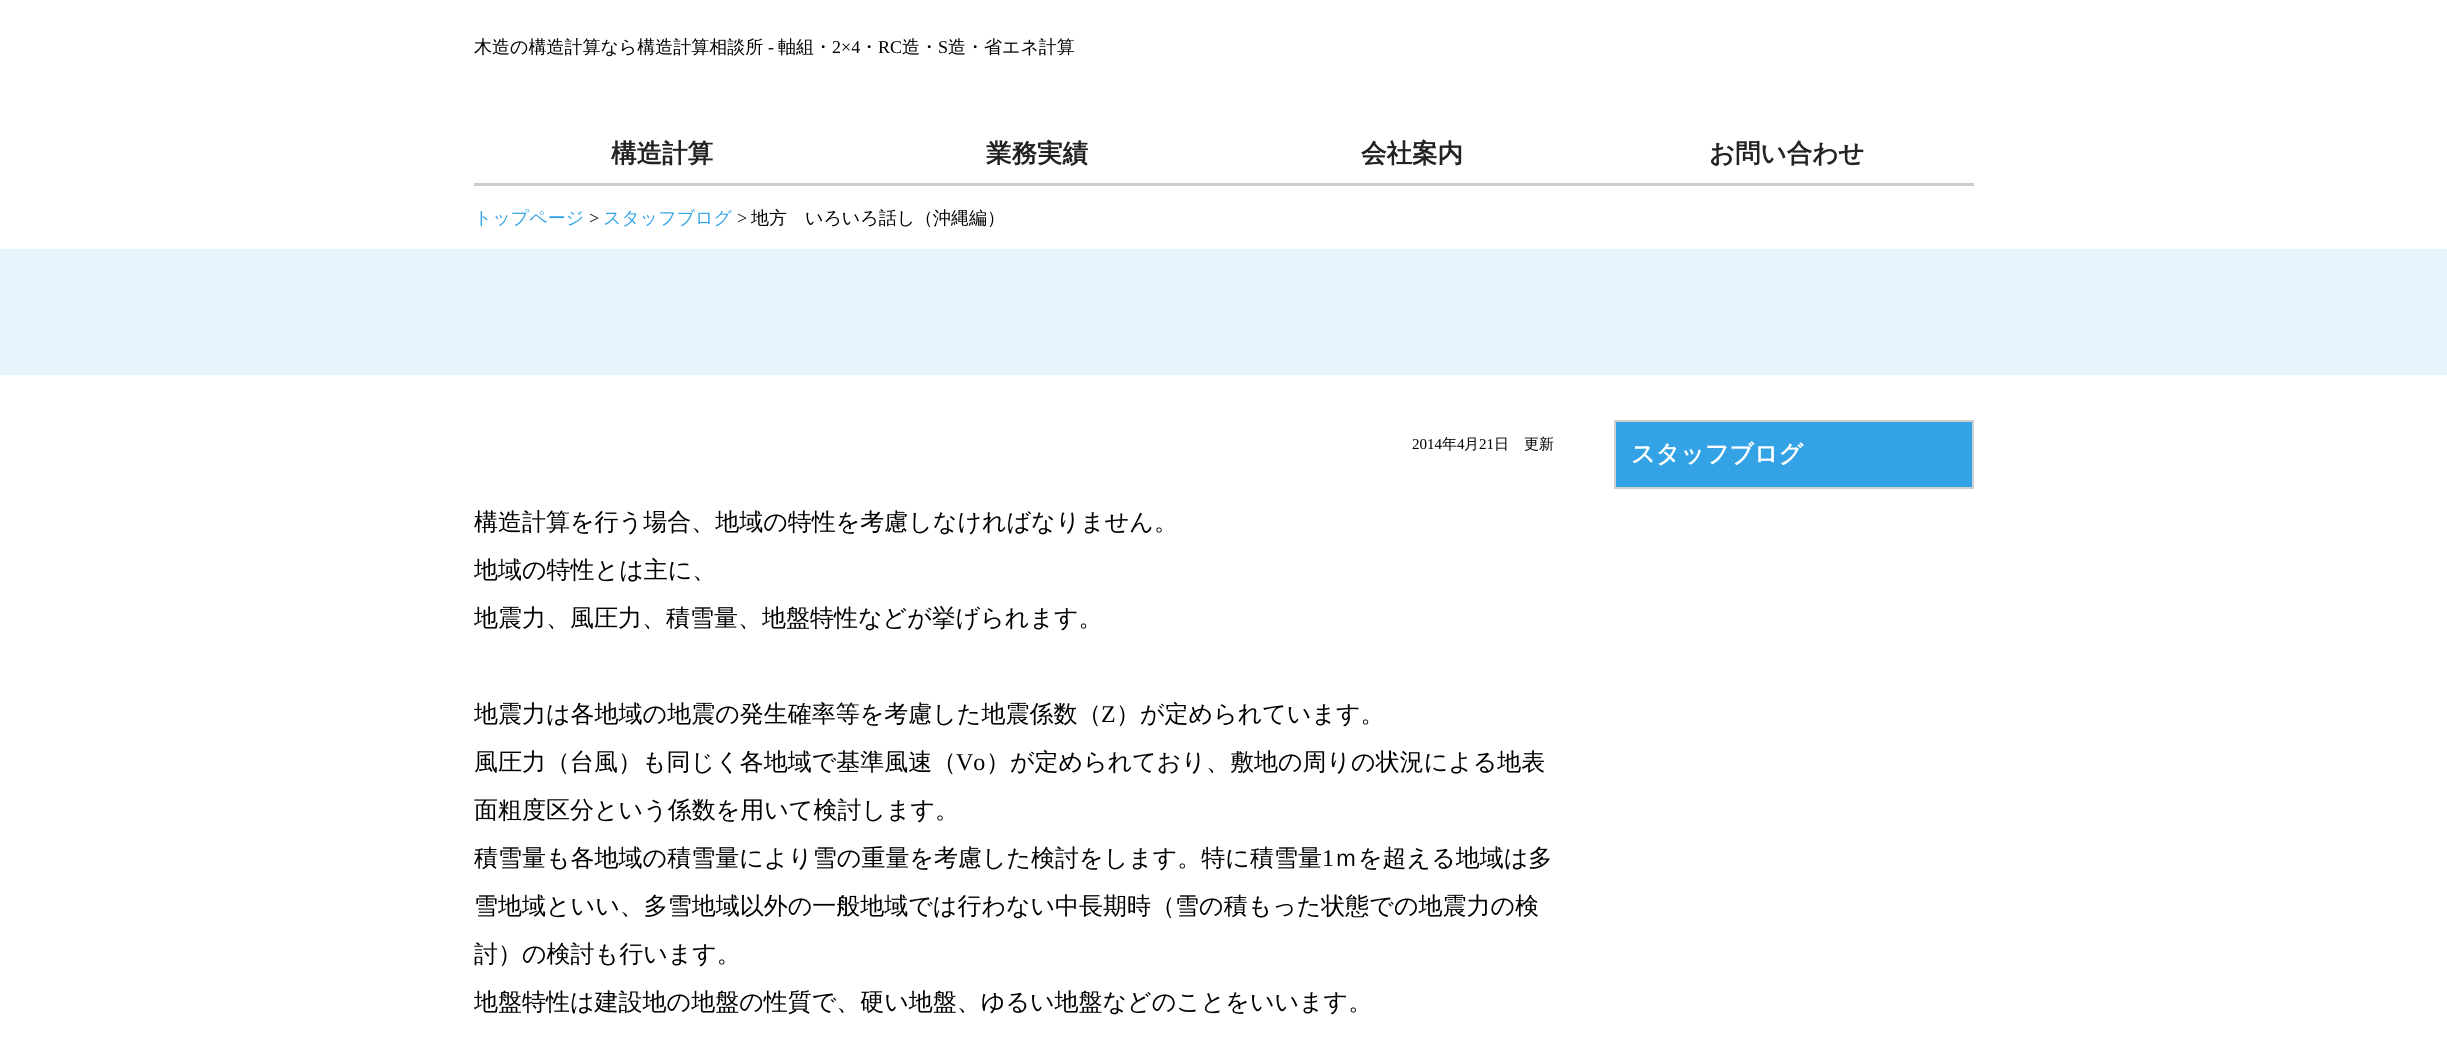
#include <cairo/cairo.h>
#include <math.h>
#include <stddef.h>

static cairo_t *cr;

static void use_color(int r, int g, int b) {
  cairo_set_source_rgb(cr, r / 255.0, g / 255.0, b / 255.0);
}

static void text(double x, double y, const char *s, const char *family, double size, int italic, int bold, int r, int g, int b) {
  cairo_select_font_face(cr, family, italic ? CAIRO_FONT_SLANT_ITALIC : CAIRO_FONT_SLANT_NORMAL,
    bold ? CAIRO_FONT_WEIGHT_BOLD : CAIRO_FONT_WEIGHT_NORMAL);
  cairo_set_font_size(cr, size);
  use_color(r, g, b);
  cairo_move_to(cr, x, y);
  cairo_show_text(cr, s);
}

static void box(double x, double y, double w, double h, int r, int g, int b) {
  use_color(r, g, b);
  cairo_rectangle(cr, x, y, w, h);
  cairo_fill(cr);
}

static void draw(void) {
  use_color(231, 244, 252);
  cairo_paint(cr);
  box(0, 0, 2447, 249, 255, 255, 255);
  box(474, 183, 1500, 3, 204, 204, 204);
  box(0, 375, 2447, 664, 255, 255, 255);
  use_color(51, 163, 230);
  cairo_rectangle(cr, 1615, 421, 358, 67);
  cairo_fill_preserve(cr);
  use_color(207, 207, 207);
  cairo_stroke(cr);
  text(474, 53, "木造の構造計算なら構造計算相談所", "WenQuanYi Zen Hei Medium", 18, 0, 0, 0, 0, 0);
  text(768, 53, "-", "Liberation Serif", 18, 0, 0, 0, 0, 0);
  text(778, 53, "軸組・", "WenQuanYi Zen Hei Medium", 18, 0, 0, 0, 0, 0);
  text(832, 53, "2×4", "Liberation Serif", 18, 0, 0, 0, 0, 0);
  text(860, 53, "・", "WenQuanYi Zen Hei Medium", 18, 0, 0, 0, 0, 0);
  text(878, 53, "RC", "Liberation Serif", 18, 0, 0, 0, 0, 0);
  text(902, 53, "造・", "WenQuanYi Zen Hei Medium", 18, 0, 0, 0, 0, 0);
  text(938, 53, "S", "Liberation Serif", 18, 0, 0, 0, 0, 0);
  text(948, 53, "造・省エネ計算", "WenQuanYi Zen Hei Medium", 18, 0, 0, 0, 0, 0);
  text(611, 162, "構造計算", "WenQuanYi Zen Hei", 25.5, 0, 1, 34, 34, 34);
  text(986, 162, "業務実績", "WenQuanYi Zen Hei", 25.5, 0, 1, 34, 34, 34);
  text(1361, 162, "会社案内", "WenQuanYi Zen Hei", 25.5, 0, 1, 34, 34, 34);
  text(1709, 162, "お問い合わせ", "WenQuanYi Zen Hei", 25.5, 0, 1, 34, 34, 34);
  text(474, 224, "トップページ", "WenQuanYi Zen Hei Medium", 18, 0, 0, 51, 163, 230);
  text(589, 224, ">", "Liberation Serif", 18, 0, 0, 0, 0, 0);
  text(603, 224, "スタッフブログ", "WenQuanYi Zen Hei Medium", 18, 0, 0, 51, 163, 230);
  text(737, 224, ">", "Liberation Serif", 18, 0, 0, 0, 0, 0);
  text(751, 224, "地方　いろいろ話し（沖縄編）", "WenQuanYi Zen Hei Medium", 18, 0, 0, 0, 0, 0);
  text(1412, 449, "2014", "Liberation Serif", 15, 0, 0, 0, 0, 0);
  text(1442, 449, "年", "WenQuanYi Zen Hei Medium", 15, 0, 0, 0, 0, 0);
  text(1457, 449, "4", "Liberation Serif", 15, 0, 0, 0, 0, 0);
  text(1464, 449, "月", "WenQuanYi Zen Hei Medium", 15, 0, 0, 0, 0, 0);
  text(1479, 449, "21", "Liberation Serif", 15, 0, 0, 0, 0, 0);
  text(1494, 449, "日　更新", "WenQuanYi Zen Hei Medium", 15, 0, 0, 0, 0, 0);
  text(474, 530, "構造計算を行う場合、地域の特性を考慮しなければなりません。", "WenQuanYi Zen Hei Medium", 24, 0, 0, 0, 0, 0);
  text(474, 578, "地域の特性とは主に、", "WenQuanYi Zen Hei Medium", 24, 0, 0, 0, 0, 0);
  text(474, 626, "地震力、風圧力、積雪量、地盤特性などが挙げられます。", "WenQuanYi Zen Hei Medium", 24, 0, 0, 0, 0, 0);
  text(474, 722, "地震力は各地域の地震の発生確率等を考慮した地震係数（", "WenQuanYi Zen Hei Medium", 24, 0, 0, 0, 0, 0);
  text(1101, 722, "Z", "Liberation Serif", 24, 0, 0, 0, 0, 0);
  text(1116, 722, "）が定められています。", "WenQuanYi Zen Hei Medium", 24, 0, 0, 0, 0, 0);
  text(474, 770, "風圧力（台風）も同じく各地域で基準風速（", "WenQuanYi Zen Hei Medium", 24, 0, 0, 0, 0, 0);
  text(956, 770, "Vo", "Liberation Serif", 24, 0, 0, 0, 0, 0);
  text(986, 770, "）が定められており、敷地の周りの状況による地表", "WenQuanYi Zen Hei Medium", 24, 0, 0, 0, 0, 0);
  text(474, 818, "面粗度区分という係数を用いて検討します。", "WenQuanYi Zen Hei Medium", 24, 0, 0, 0, 0, 0);
  text(474, 866, "積雪量も各地域の積雪量により雪の重量を考慮した検討をします。特に積雪量", "WenQuanYi Zen Hei Medium", 24, 0, 0, 0, 0, 0);
  text(1322, 866, "1", "Liberation Serif", 24, 0, 0, 0, 0, 0);
  text(1334, 866, "ｍを超える地域は多", "WenQuanYi Zen Hei Medium", 24, 0, 0, 0, 0, 0);
  text(474, 914, "雪地域といい、多雪地域以外の一般地域では行わない中長期時（雪の積もった状態での地震力の検", "WenQuanYi Zen Hei Medium", 24, 0, 0, 0, 0, 0);
  text(474, 962, "討）の検討も行います。", "WenQuanYi Zen Hei Medium", 24, 0, 0, 0, 0, 0);
  text(474, 1010, "地盤特性は建設地の地盤の性質で、硬い地盤、ゆるい地盤などのことをいいます。", "WenQuanYi Zen Hei Medium", 24, 0, 0, 0, 0, 0);
  text(1631, 462, "スタッフブログ", "WenQuanYi Zen Hei", 24, 0, 1, 255, 255, 255);
}

int main(void) {
  cairo_surface_t *surface = cairo_image_surface_create(CAIRO_FORMAT_RGB24, 2447, 1039);
  cr = cairo_create(surface);
  cairo_font_options_t *options = cairo_font_options_create();
  cairo_font_options_set_hint_metrics(options, CAIRO_HINT_METRICS_OFF);
  cairo_font_options_set_hint_style(options, CAIRO_HINT_STYLE_NONE);
  cairo_set_font_options(cr, options);
  cairo_set_miter_limit(cr, 4);
  draw();
  cairo_surface_write_to_png(surface, "out.png");
  cairo_font_options_destroy(options);
  cairo_destroy(cr);
  cairo_surface_destroy(surface);
  return 0;
}
